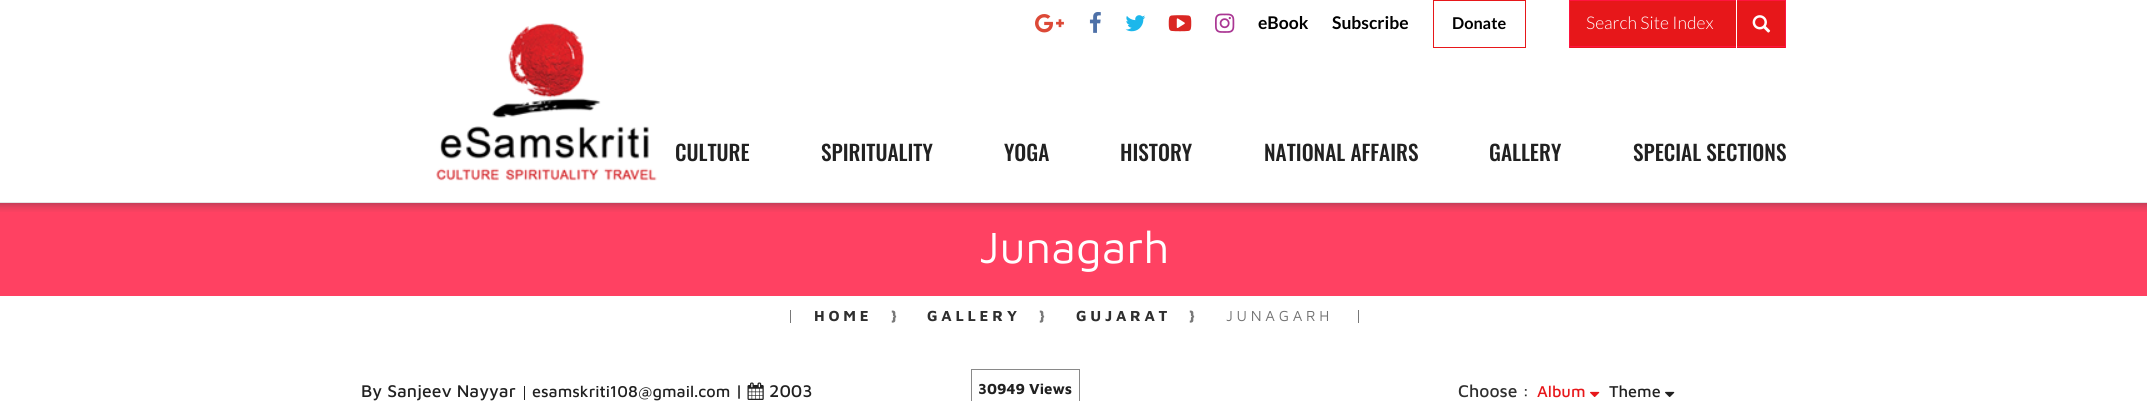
#include <cairo/cairo.h>
#include <math.h>
#include <stddef.h>

static cairo_t *cr;

static void use_color(int r, int g, int b) {
  cairo_set_source_rgb(cr, r / 255.0, g / 255.0, b / 255.0);
}

static void text(double x, double y, const char *s, const char *family, double size, int italic, int bold, int r, int g, int b) {
  cairo_select_font_face(cr, family, italic ? CAIRO_FONT_SLANT_ITALIC : CAIRO_FONT_SLANT_NORMAL,
    bold ? CAIRO_FONT_WEIGHT_BOLD : CAIRO_FONT_WEIGHT_NORMAL);
  cairo_set_font_size(cr, size);
  use_color(r, g, b);
  cairo_move_to(cr, x, y);
  cairo_show_text(cr, s);
}

static void spaced_text(double x, double y, const char *s, double letter, double word) {
  cairo_move_to(cr, x, y);
  while (*s) {
    char ch[5] = {0};
    int n = 0;
    do ch[n++] = *s++; while ((*s & 0xC0) == 0x80);
    cairo_show_text(cr, ch);
    cairo_rel_move_to(cr, letter + word * (*ch == ' '), 0);
  }
}

static void box(double x, double y, double w, double h, int r, int g, int b) {
  use_color(r, g, b);
  cairo_rectangle(cr, x, y, w, h);
  cairo_fill(cr);
}

static void picture(const char *path, double x, double y, double w, double h) {
  cairo_surface_t *image = cairo_image_surface_create_from_png(path);
  cairo_save(cr);
  cairo_set_source_surface(cr, image, x, y);
  cairo_rectangle(cr, x, y, w, h);
  cairo_fill(cr);
  cairo_restore(cr);
  cairo_surface_destroy(image);
}

static void draw(void) {
  use_color(255, 255, 255);
  cairo_paint(cr);
  picture("img_01.png", 436, 23, 221, 158);
  picture("img_02.png", 1035, 14, 29, 19);
  picture("img_03.png", 1089, 12, 12, 21);
  picture("img_04.png", 1125, 15, 21, 17);
  picture("img_05.png", 1168, 15, 24, 17);
  picture("img_06.png", 1215, 13, 20, 20);
  cairo_rectangle(cr, 1433.5, 0.5, 92, 47);
  use_color(231, 23, 26);
  cairo_set_line_width(cr, 1);
  cairo_stroke(cr);
  box(1570, 1, 166, 47, 231, 23, 26);
  box(1569, 0, 217, 1, 255, 20, 63);
  box(1569, 46, 169, 1, 255, 20, 63);
  box(1569, 0, 1, 48, 255, 20, 63);
  box(1737, 1, 48, 47, 231, 23, 26);
  box(1785, 0, 1, 48, 255, 20, 63);
  box(1736, 46, 50, 1, 255, 20, 63);
  box(1736, 0, 1, 48, 255, 255, 255);
  picture("img_07.png", 1752, 15, 19, 18);
  box(0, 203, 2147, 93, 255, 65, 98);
  picture("img_08.png", 0, 202, 2147, 10);
  box(790, 310, 1, 13, 120, 120, 120);
  box(1358, 310, 1, 13, 120, 120, 120);
  box(524, 386, 1, 14, 33, 33, 33);
  picture("img_09.png", 747, 382, 17, 18);
  cairo_rectangle(cr, 971.5, 369.5, 108, 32);
  use_color(137, 137, 137);
  cairo_stroke(cr);
  picture("img_10.png", 1590, 391, 10, 6);
  picture("img_11.png", 1665, 391, 10, 6);
  text(1258, 29, "eBook", "Lato", 17.5, 0, 1, 0, 0, 0);
  text(1332, 29, "Subscribe", "Lato", 17.5, 0, 1, 0, 0, 0);
  text(1452, 29, "Donate", "Lato", 16.25, 0, 1, 0, 0, 0);
  text(1586, 29, "Search Site Index", "Lato Light", 17.5, 0, 0, 255, 255, 255);
  text(675, 161, "CULTURE", "Oswald Medium", 21.25, 0, 0, 33, 33, 33);
  text(821, 161, "SPIRITUALITY", "Oswald Medium", 21.25, 0, 0, 33, 33, 33);
  text(1004, 161, "YOGA", "Oswald Medium", 21.25, 0, 0, 33, 33, 33);
  text(1120, 161, "HISTORY", "Oswald Medium", 21.25, 0, 0, 33, 33, 33);
  text(1264, 161, "NATIONAL AFFAIRS", "Oswald Medium", 21.25, 0, 0, 33, 33, 33);
  text(1489, 161, "GALLERY", "Oswald Medium", 21.25, 0, 0, 33, 33, 33);
  text(1633, 161, "SPECIAL SECTIONS", "Oswald Medium", 21.25, 0, 0, 33, 33, 33);
  text(979, 263, "Junagarh", "Maven Pro", 45, 0, 0, 255, 255, 255);
  cairo_select_font_face(cr, "Maven Pro", CAIRO_FONT_SLANT_NORMAL, CAIRO_FONT_WEIGHT_BOLD);
  cairo_set_font_size(cr, 15);
  use_color(47, 47, 47);
  spaced_text(814, 321, "HOME", 3.75, 0);
  use_color(120, 120, 120);
  spaced_text(891, 321, "}", 3.75, 0);
  use_color(47, 47, 47);
  spaced_text(927, 321, "GALLERY", 3.75, 0);
  use_color(120, 120, 120);
  spaced_text(1039, 321, "}", 3.75, 0);
  use_color(47, 47, 47);
  spaced_text(1076, 321, "GUJARAT", 3.75, 0);
  use_color(120, 120, 120);
  spaced_text(1189, 321, "}", 3.75, 0);
  cairo_select_font_face(cr, "Maven Pro", CAIRO_FONT_SLANT_NORMAL, CAIRO_FONT_WEIGHT_NORMAL);
  use_color(114, 114, 114);
  spaced_text(1226, 321, "JUNAGARH", 3.75, 0);
  text(361, 397, "By Sanjeev Nayyar", "Maven Pro Medium", 17.5, 0, 0, 33, 33, 33);
  text(532, 397, "esamskriti108@gmail.com", "Maven Pro Medium", 16.25, 0, 0, 33, 33, 33);
  text(735, 397, "|", "Maven Pro Medium", 17.5, 0, 0, 33, 33, 33);
  text(769, 397, "2003", "Maven Pro Medium", 17.5, 0, 0, 33, 33, 33);
  text(978, 394, "30949 Views", "Maven Pro", 15, 0, 1, 33, 33, 33);
  text(1458, 397, "Choose :", "Maven Pro Medium", 17.5, 0, 0, 47, 47, 47);
  text(1537, 397, "Album", "Maven Pro Medium", 16.25, 0, 0, 231, 23, 26);
  text(1609, 397, "Theme", "Maven Pro Medium", 16.25, 0, 0, 33, 33, 33);
}

int main(void) {
  cairo_surface_t *surface = cairo_image_surface_create(CAIRO_FORMAT_RGB24, 2147, 401);
  cr = cairo_create(surface);
  cairo_font_options_t *options = cairo_font_options_create();
  cairo_font_options_set_hint_metrics(options, CAIRO_HINT_METRICS_OFF);
  cairo_font_options_set_hint_style(options, CAIRO_HINT_STYLE_NONE);
  cairo_set_font_options(cr, options);
  cairo_set_miter_limit(cr, 4);
  draw();
  cairo_surface_write_to_png(surface, "out.png");
  cairo_font_options_destroy(options);
  cairo_destroy(cr);
  cairo_surface_destroy(surface);
  return 0;
}
